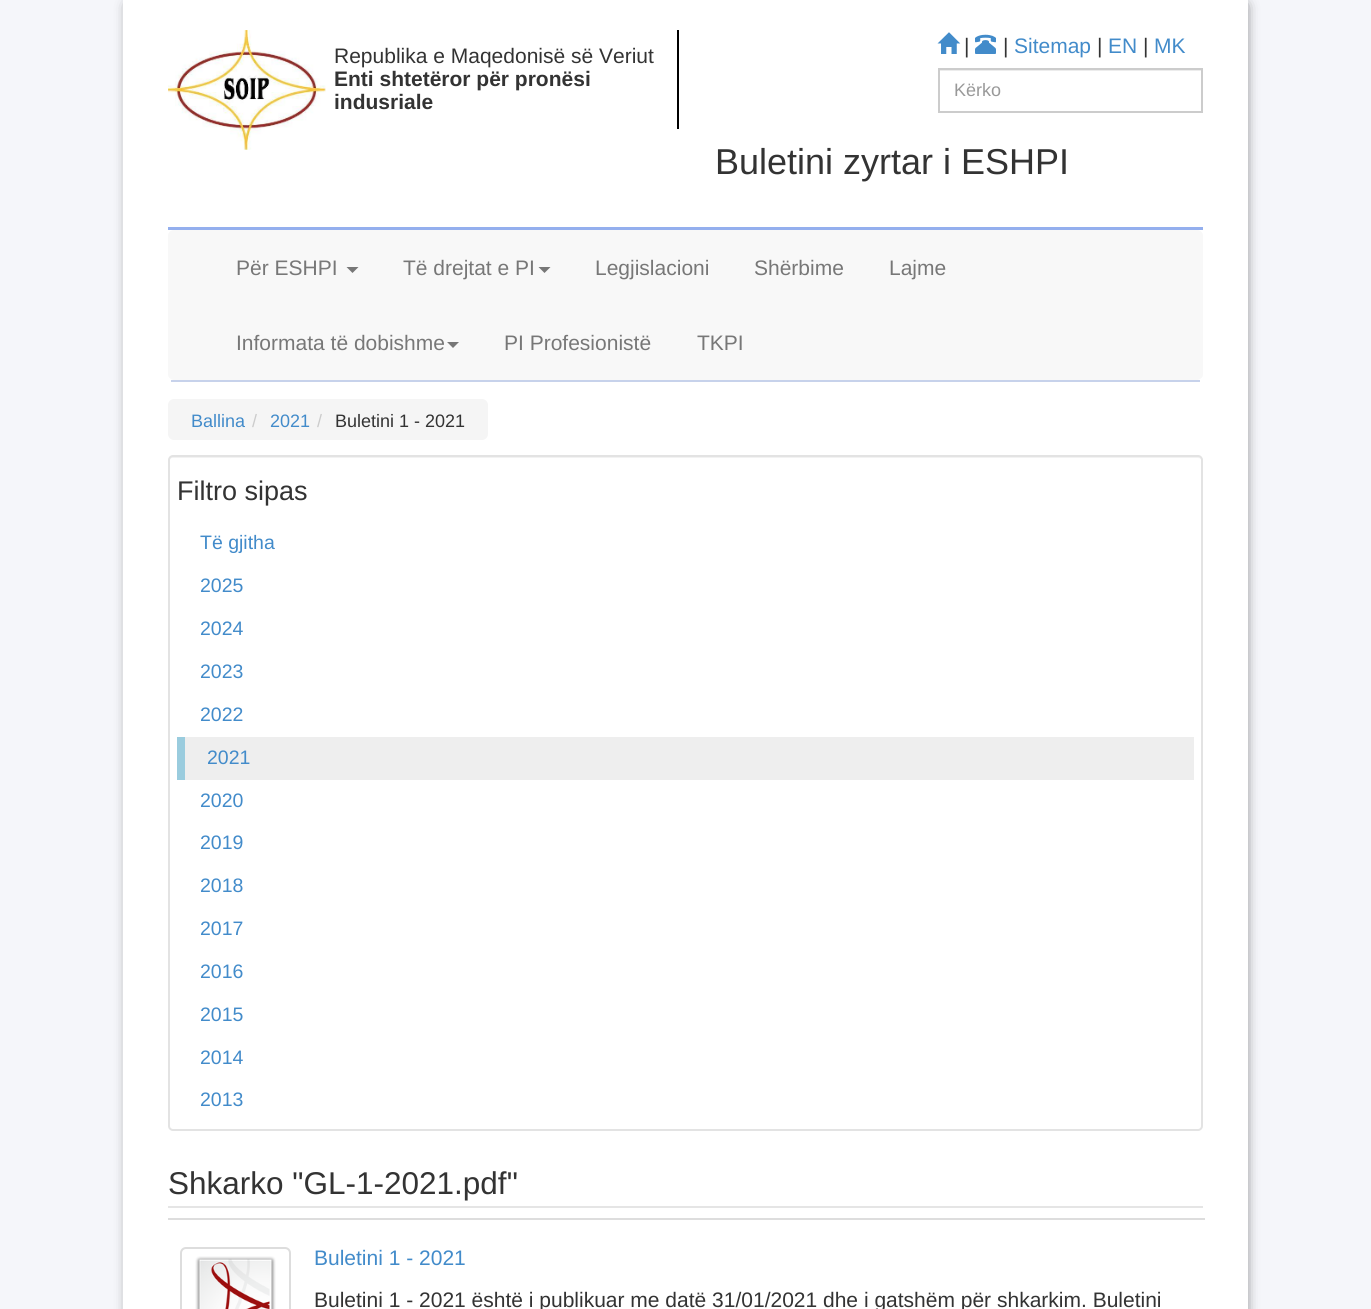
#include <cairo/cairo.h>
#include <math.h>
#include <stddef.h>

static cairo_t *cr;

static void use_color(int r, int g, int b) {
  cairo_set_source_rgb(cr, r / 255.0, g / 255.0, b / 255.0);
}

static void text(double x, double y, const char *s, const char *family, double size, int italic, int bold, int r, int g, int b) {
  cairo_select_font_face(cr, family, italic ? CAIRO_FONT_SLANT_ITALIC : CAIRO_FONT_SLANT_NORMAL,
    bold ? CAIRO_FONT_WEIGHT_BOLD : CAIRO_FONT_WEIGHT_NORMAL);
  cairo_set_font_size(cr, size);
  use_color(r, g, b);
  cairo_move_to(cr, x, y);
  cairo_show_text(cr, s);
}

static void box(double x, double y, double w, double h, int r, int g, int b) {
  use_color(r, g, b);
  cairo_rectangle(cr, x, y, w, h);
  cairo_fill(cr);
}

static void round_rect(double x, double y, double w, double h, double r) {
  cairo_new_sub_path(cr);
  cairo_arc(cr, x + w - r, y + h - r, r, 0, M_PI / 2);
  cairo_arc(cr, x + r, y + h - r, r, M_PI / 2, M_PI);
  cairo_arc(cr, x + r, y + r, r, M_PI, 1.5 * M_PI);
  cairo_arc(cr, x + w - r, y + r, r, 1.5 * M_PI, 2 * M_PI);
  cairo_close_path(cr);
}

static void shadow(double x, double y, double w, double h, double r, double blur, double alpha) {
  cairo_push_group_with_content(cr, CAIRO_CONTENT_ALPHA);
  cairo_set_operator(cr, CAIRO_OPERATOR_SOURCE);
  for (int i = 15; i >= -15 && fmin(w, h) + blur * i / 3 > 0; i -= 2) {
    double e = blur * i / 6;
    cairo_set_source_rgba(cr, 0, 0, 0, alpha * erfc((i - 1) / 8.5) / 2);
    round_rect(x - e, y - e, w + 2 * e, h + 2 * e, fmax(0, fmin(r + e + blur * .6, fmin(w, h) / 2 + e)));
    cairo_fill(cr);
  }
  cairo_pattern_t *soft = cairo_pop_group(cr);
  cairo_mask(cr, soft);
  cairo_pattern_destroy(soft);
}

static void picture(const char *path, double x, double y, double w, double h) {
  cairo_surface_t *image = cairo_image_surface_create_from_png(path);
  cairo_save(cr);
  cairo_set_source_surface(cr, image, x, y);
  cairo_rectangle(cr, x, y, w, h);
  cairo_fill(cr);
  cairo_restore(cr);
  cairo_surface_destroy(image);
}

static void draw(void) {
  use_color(245, 246, 250);
  cairo_paint(cr);
  use_color(0, 0, 0);
  shadow(132, 6, 1110, 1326, 0, 7.5, 1);
  box(123, 0, 1125, 1309, 255, 255, 255);
  picture("img_01.png", 168, 30, 158, 120);
  box(677, 30, 2, 99, 0, 0, 0);
  picture("img_02.png", 937, 32, 24, 22);
  picture("img_03.png", 975, 34, 21, 20);
  box(939, 70, 263, 1, 236, 236, 236);
  cairo_rectangle(cr, 939, 69, 263, 43);
  use_color(204, 204, 204);
  cairo_stroke(cr);
  box(168, 227, 1035, 3, 148, 175, 238);
  use_color(248, 248, 248);
  cairo_new_path(cr);
  cairo_move_to(cr, 174, 230);
  cairo_line_to(cr, 1197, 230);
  cairo_curve_to(cr, 1200, 230, 1203, 232, 1203, 236);
  cairo_line_to(cr, 1203, 375);
  cairo_curve_to(cr, 1203, 377, 1200, 380, 1197, 380);
  cairo_line_to(cr, 174, 380);
  cairo_curve_to(cr, 171, 380, 168, 377, 168, 375);
  cairo_line_to(cr, 168, 236);
  cairo_curve_to(cr, 168, 232, 171, 230, 174, 230);
  cairo_close_path(cr);
  cairo_fill(cr);
  box(171, 380, 1029, 2, 199, 210, 235);
  use_color(119, 119, 119);
  cairo_new_path(cr);
  cairo_move_to(cr, 346.5, 267);
  cairo_line_to(cr, 358.5, 267);
  cairo_line_to(cr, 352.5, 273);
  cairo_close_path(cr);
  cairo_fill(cr);
  cairo_new_path(cr);
  cairo_move_to(cr, 538.5, 267);
  cairo_line_to(cr, 550.5, 267);
  cairo_line_to(cr, 544.5, 273);
  cairo_close_path(cr);
  cairo_fill(cr);
  cairo_new_path(cr);
  cairo_move_to(cr, 447, 342);
  cairo_line_to(cr, 459, 342);
  cairo_line_to(cr, 453, 348);
  cairo_close_path(cr);
  cairo_fill(cr);
  use_color(245, 245, 245);
  round_rect(168, 399, 320, 41, 6);
  cairo_fill(cr);
  use_color(242, 242, 242);
  cairo_new_path(cr);
  cairo_move_to(cr, 172, 458);
  cairo_line_to(cr, 1198, 458);
  cairo_curve_to(cr, 1200, 458, 1202, 459, 1202, 460);
  cairo_curve_to(cr, 1202, 458, 1201, 456, 1199, 456);
  cairo_line_to(cr, 173, 456);
  cairo_curve_to(cr, 171, 456, 170, 458, 170, 460);
  cairo_curve_to(cr, 170, 459, 171, 458, 172, 458);
  cairo_close_path(cr);
  cairo_fill(cr);
  round_rect(169, 456, 1033, 674, 4);
  use_color(227, 227, 227);
  cairo_stroke(cr);
  box(177, 737, 8, 43, 154, 204, 222);
  box(185, 737, 1009, 43, 238, 238, 238);
  box(168, 1206, 1035, 2, 229, 229, 229);
  round_rect(181, 1248, 109, 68, 5);
  use_color(221, 221, 221);
  cairo_stroke(cr);
  picture("img_04.png", 195, 1256, 81, 53);
  box(168, 1218, 1037, 2, 221, 221, 221);
  text(334, 63, "Republika e Maqedonisë së Veriut", "Liberation Sans", 21, 0, 0, 51, 51, 51);
  text(334, 86, "Enti shtetëror për pronësi", "Liberation Sans", 21, 0, 1, 51, 51, 51);
  text(334, 109, "indusriale", "Liberation Sans", 21, 0, 1, 51, 51, 51);
  text(964, 53, "|", "Liberation Sans", 21, 0, 0, 51, 51, 51);
  text(1003, 53, "|", "Liberation Sans", 21, 0, 0, 51, 51, 51);
  text(1014, 53, "Sitemap", "Liberation Sans", 21, 0, 0, 66, 139, 202);
  text(1097, 53, "|", "Liberation Sans", 21, 0, 0, 51, 51, 51);
  text(1108, 53, "EN", "Liberation Sans", 21, 0, 0, 66, 139, 202);
  text(1143, 53, "|", "Liberation Sans", 21, 0, 0, 51, 51, 51);
  text(1154, 53, "MK", "Liberation Sans", 21, 0, 0, 66, 139, 202);
  text(954, 96, "Kërko", "Liberation Sans", 18, 0, 0, 153, 153, 153);
  text(715, 174, "Buletini zyrtar i ESHPI", "Liberation Sans", 36, 0, 0, 51, 51, 51);
  text(236, 275, "Për ESHPI", "Liberation Sans", 21, 0, 0, 119, 119, 119);
  text(403, 275, "Të drejtat e PI", "Liberation Sans", 21, 0, 0, 119, 119, 119);
  text(595, 275, "Legjislacioni", "Liberation Sans", 21, 0, 0, 119, 119, 119);
  text(754, 275, "Shërbime", "Liberation Sans", 21, 0, 0, 119, 119, 119);
  text(889, 275, "Lajme", "Liberation Sans", 21, 0, 0, 119, 119, 119);
  text(236, 350, "Informata të dobishme", "Liberation Sans", 21, 0, 0, 119, 119, 119);
  text(504, 350, "PI Profesionistë", "Liberation Sans", 21, 0, 0, 119, 119, 119);
  text(697, 350, "TKPI", "Liberation Sans", 21, 0, 0, 119, 119, 119);
  text(191, 427, "Ballina", "Liberation Sans", 18, 0, 0, 66, 139, 202);
  text(252, 427, "/", "Liberation Sans", 18, 0, 0, 204, 204, 204);
  text(270, 427, "2021", "Liberation Sans", 18, 0, 0, 66, 139, 202);
  text(317, 427, "/", "Liberation Sans", 18, 0, 0, 204, 204, 204);
  text(335, 427, "Buletini 1 - 2021", "Liberation Sans", 18, 0, 0, 51, 51, 51);
  text(177, 500, "Filtro sipas", "Liberation Sans", 27, 0, 0, 51, 51, 51);
  text(200, 549, "Të gjitha", "Liberation Sans", 19.5, 0, 0, 66, 139, 202);
  text(200, 592, "2025", "Liberation Sans", 19.5, 0, 0, 66, 139, 202);
  text(200, 635, "2024", "Liberation Sans", 19.5, 0, 0, 66, 139, 202);
  text(200, 678, "2023", "Liberation Sans", 19.5, 0, 0, 66, 139, 202);
  text(200, 721, "2022", "Liberation Sans", 19.5, 0, 0, 66, 139, 202);
  text(207, 764, "2021", "Liberation Sans", 19.5, 0, 0, 66, 139, 202);
  text(200, 807, "2020", "Liberation Sans", 19.5, 0, 0, 66, 139, 202);
  text(200, 849, "2019", "Liberation Sans", 19.5, 0, 0, 66, 139, 202);
  text(200, 892, "2018", "Liberation Sans", 19.5, 0, 0, 66, 139, 202);
  text(200, 935, "2017", "Liberation Sans", 19.5, 0, 0, 66, 139, 202);
  text(200, 978, "2016", "Liberation Sans", 19.5, 0, 0, 66, 139, 202);
  text(200, 1021, "2015", "Liberation Sans", 19.5, 0, 0, 66, 139, 202);
  text(200, 1064, "2014", "Liberation Sans", 19.5, 0, 0, 66, 139, 202);
  text(200, 1106, "2013", "Liberation Sans", 19.5, 0, 0, 66, 139, 202);
  text(168, 1194, "Shkarko \"GL-1-2021.pdf\"", "Liberation Sans", 31.5, 0, 0, 51, 51, 51);
  text(314, 1265, "Buletini 1 - 2021", "Liberation Sans", 21, 0, 0, 66, 139, 202);
  text(314, 1307, "Buletini 1 - 2021 është i publikuar me datë 31/01/2021 dhe i gatshëm për shkarkim. Buletini", "Liberation Sans", 21, 0, 0, 51, 51, 51);
}

int main(void) {
  cairo_surface_t *surface = cairo_image_surface_create(CAIRO_FORMAT_RGB24, 1371, 1309);
  cr = cairo_create(surface);
  cairo_font_options_t *options = cairo_font_options_create();
  cairo_font_options_set_hint_metrics(options, CAIRO_HINT_METRICS_OFF);
  cairo_font_options_set_hint_style(options, CAIRO_HINT_STYLE_NONE);
  cairo_set_font_options(cr, options);
  cairo_set_miter_limit(cr, 4);
  draw();
  cairo_surface_write_to_png(surface, "out.png");
  cairo_font_options_destroy(options);
  cairo_destroy(cr);
  cairo_surface_destroy(surface);
  return 0;
}
